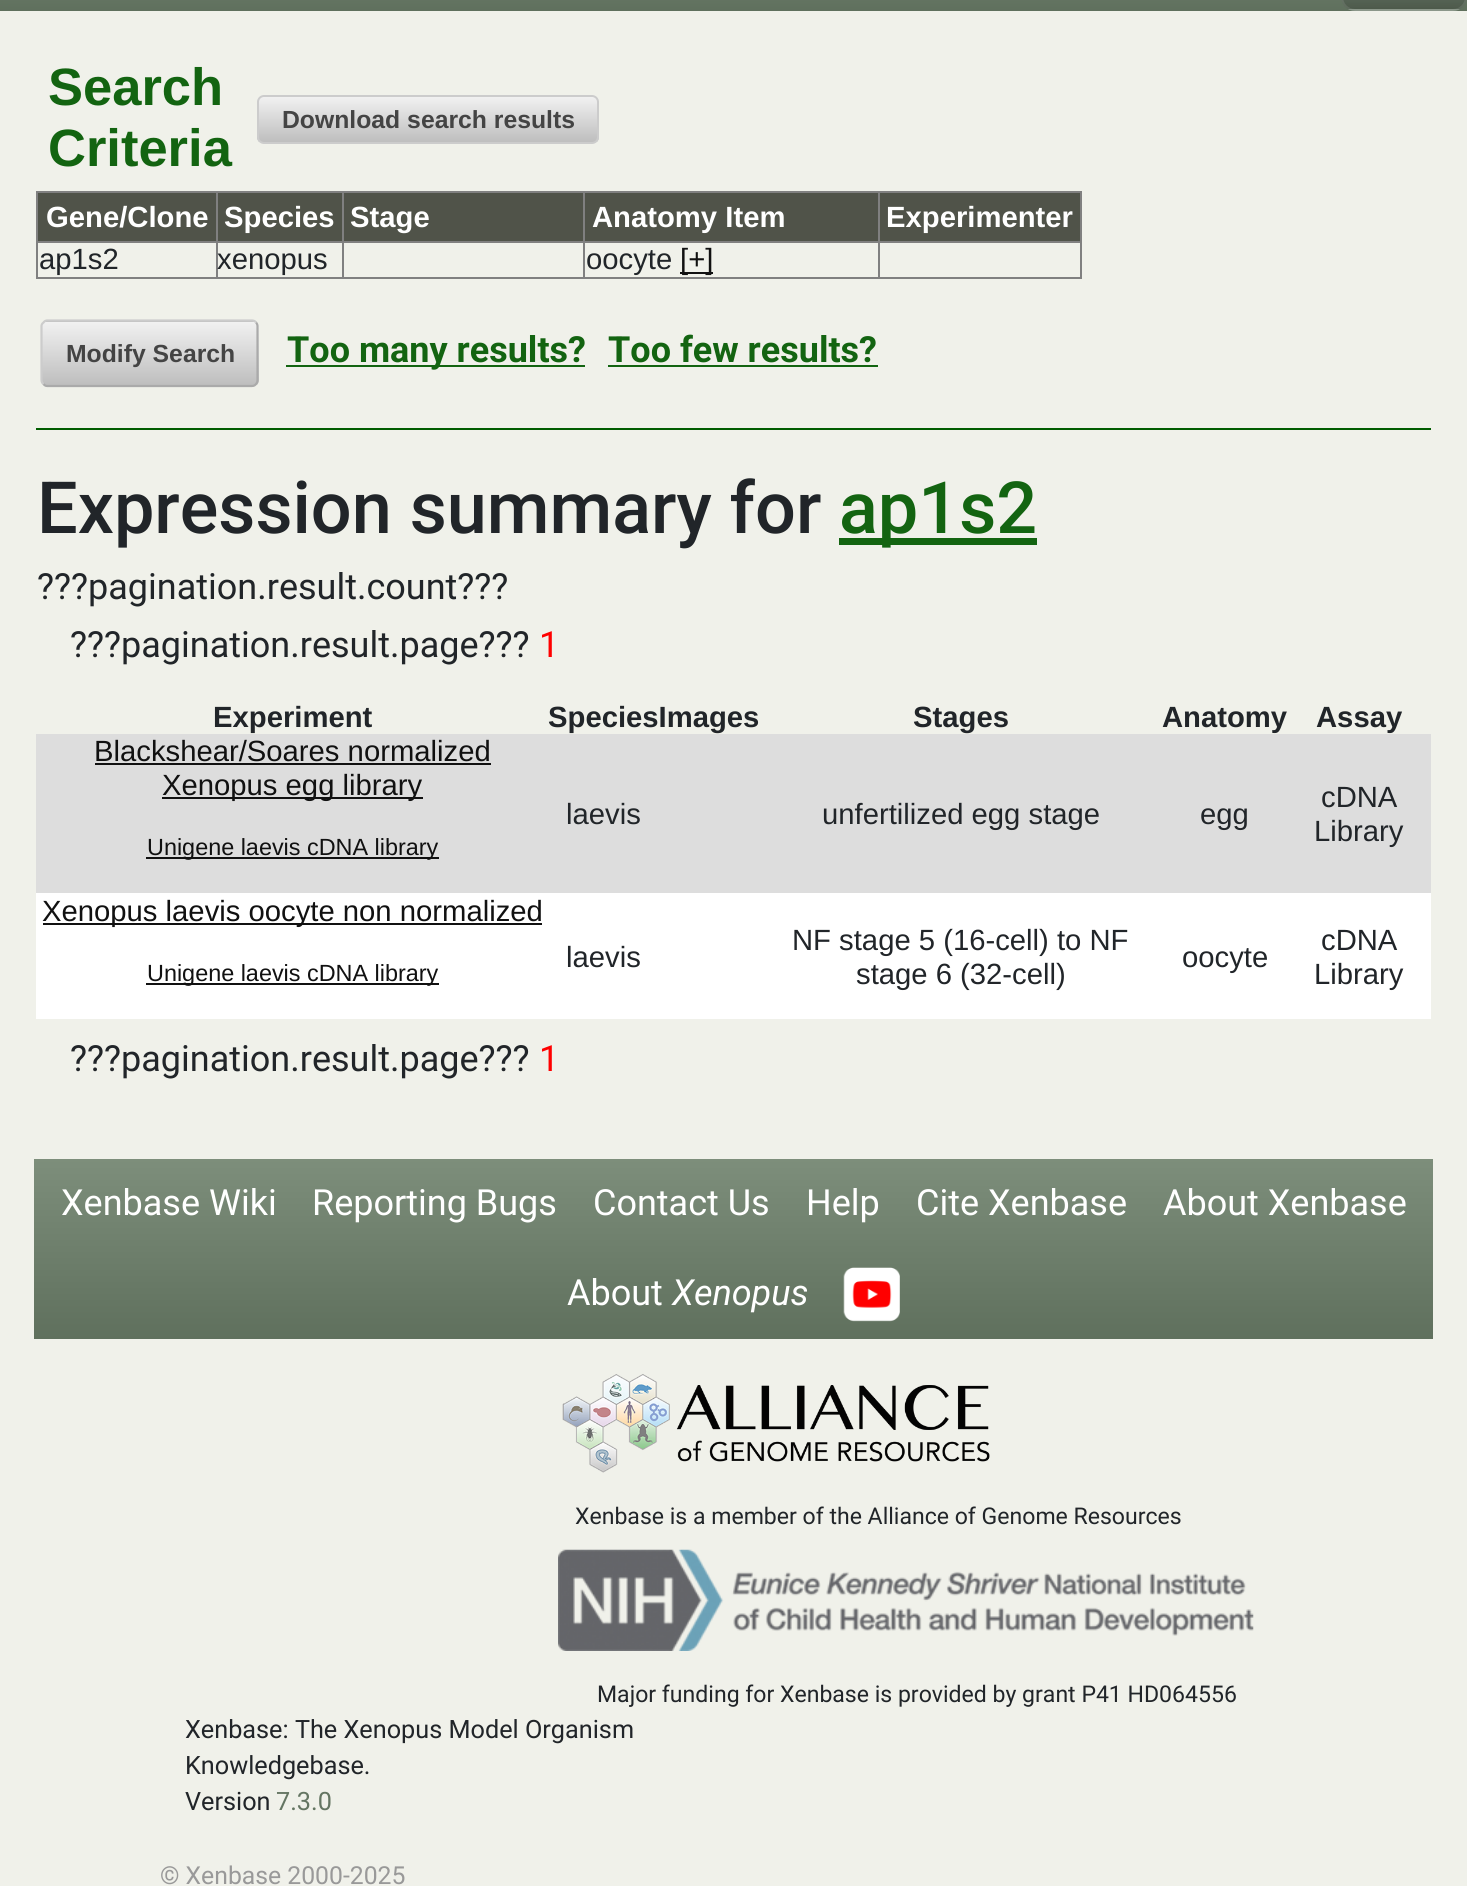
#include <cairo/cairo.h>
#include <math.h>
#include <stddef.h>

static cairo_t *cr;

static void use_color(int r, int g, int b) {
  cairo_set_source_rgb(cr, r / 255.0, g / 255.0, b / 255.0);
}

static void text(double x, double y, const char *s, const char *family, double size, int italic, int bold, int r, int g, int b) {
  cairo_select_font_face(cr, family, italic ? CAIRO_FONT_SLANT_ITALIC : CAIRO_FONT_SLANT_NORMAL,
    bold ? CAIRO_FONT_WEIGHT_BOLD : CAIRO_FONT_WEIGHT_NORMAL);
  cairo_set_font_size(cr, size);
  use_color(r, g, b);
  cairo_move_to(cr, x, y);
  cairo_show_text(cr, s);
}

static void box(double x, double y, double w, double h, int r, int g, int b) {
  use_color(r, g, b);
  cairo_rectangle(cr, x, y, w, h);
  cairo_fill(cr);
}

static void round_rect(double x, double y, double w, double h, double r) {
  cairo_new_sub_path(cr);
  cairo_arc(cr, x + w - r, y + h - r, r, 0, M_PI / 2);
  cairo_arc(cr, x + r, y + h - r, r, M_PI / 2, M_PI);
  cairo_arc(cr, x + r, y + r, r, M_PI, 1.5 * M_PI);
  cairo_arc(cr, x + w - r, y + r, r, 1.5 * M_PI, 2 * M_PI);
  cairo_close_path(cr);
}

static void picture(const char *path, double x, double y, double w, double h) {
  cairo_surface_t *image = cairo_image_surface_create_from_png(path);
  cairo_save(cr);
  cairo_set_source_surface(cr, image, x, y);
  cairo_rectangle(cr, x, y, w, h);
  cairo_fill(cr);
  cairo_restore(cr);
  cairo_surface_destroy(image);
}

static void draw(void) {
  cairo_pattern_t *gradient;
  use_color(240, 241, 234);
  cairo_paint(cr);
  gradient = cairo_pattern_create_linear(734, -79, 734, 11);
  cairo_pattern_add_color_stop_rgba(gradient, 0, 0.49, 0.557, 0.482, 1);
  cairo_pattern_add_color_stop_rgba(gradient, 1, 0.373, 0.439, 0.365, 1);
  cairo_set_source(cr, gradient);
  cairo_pattern_destroy(gradient);
  cairo_rectangle(cr, 0, 0, 1467, 11);
  cairo_fill(cr);
  cairo_save(cr);
  round_rect(1341, -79, 126, 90, 14);
  cairo_clip(cr);
  gradient = cairo_pattern_create_linear(1404, -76, 1404, 9);
  cairo_pattern_add_color_stop_rgba(gradient, 0, 1, 1, 1, 0.2);
  cairo_pattern_add_color_stop_rgba(gradient, 1, 0, 0, 0, 0.2);
  cairo_set_source(cr, gradient);
  cairo_pattern_destroy(gradient);
  cairo_rectangle(cr, 1341, 0, 126, 9);
  cairo_fill(cr);
  gradient = cairo_pattern_create_linear(1404, 9, 1404, 95);
  cairo_pattern_add_color_stop_rgba(gradient, 0, 0.498, 0.553, 0.494, 1);
  cairo_pattern_add_color_stop_rgba(gradient, 1, 0.298, 0.353, 0.294, 1);
  cairo_set_source(cr, gradient);
  cairo_pattern_destroy(gradient);
  cairo_rectangle(cr, 1341, 9, 126, 2);
  cairo_fill(cr);
  cairo_restore(cr);
  round_rect(1342, -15, 124, 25, 13);
  cairo_set_source_rgba(cr, 1, 1, 1, 0.1);
  cairo_stroke(cr);
  cairo_save(cr);
  round_rect(257, 95, 342, 49, 7);
  cairo_clip(cr);
  gradient = cairo_pattern_create_linear(428, 97, 428, 142);
  cairo_pattern_add_color_stop_rgba(gradient, 0, 0.945, 0.945, 0.945, 1);
  cairo_pattern_add_color_stop_rgba(gradient, 1, 0.745, 0.745, 0.745, 1);
  cairo_set_source(cr, gradient);
  cairo_pattern_destroy(gradient);
  cairo_rectangle(cr, 257, 97, 342, 45);
  cairo_fill(cr);
  cairo_restore(cr);
  round_rect(258, 96, 340, 47, 6);
  use_color(204, 204, 204);
  cairo_stroke(cr);
  box(36, 191, 1046, 2, 128, 128, 128);
  box(1080, 191, 2, 88, 128, 128, 128);
  box(36, 277, 1046, 2, 128, 128, 128);
  box(36, 191, 2, 88, 128, 128, 128);
  box(38, 193, 178, 48, 80, 83, 73);
  box(218, 193, 124, 48, 80, 83, 73);
  box(878, 241, 204, 2, 128, 128, 128);
  box(878, 241, 2, 38, 128, 128, 128);
  box(583, 241, 297, 2, 128, 128, 128);
  box(583, 241, 2, 38, 128, 128, 128);
  box(342, 241, 243, 2, 128, 128, 128);
  box(342, 241, 2, 38, 128, 128, 128);
  box(216, 241, 128, 2, 128, 128, 128);
  box(216, 241, 2, 38, 128, 128, 128);
  box(36, 241, 182, 2, 128, 128, 128);
  box(216, 191, 2, 52, 128, 128, 128);
  box(344, 193, 239, 48, 80, 83, 73);
  box(342, 191, 2, 52, 128, 128, 128);
  box(585, 193, 293, 48, 80, 83, 73);
  box(583, 191, 2, 52, 128, 128, 128);
  box(880, 193, 200, 48, 80, 83, 73);
  box(878, 191, 2, 52, 128, 128, 128);
  box(680, 272, 33, 2, 17, 17, 17);
  cairo_save(cr);
  round_rect(41, 320, 218, 67, 7);
  cairo_clip(cr);
  gradient = cairo_pattern_create_linear(150, 259, 150, 322);
  cairo_pattern_add_color_stop_rgba(gradient, 0, 0.945, 0.945, 0.945, 1);
  cairo_pattern_add_color_stop_rgba(gradient, 1, 0.745, 0.745, 0.745, 1);
  cairo_set_source(cr, gradient);
  cairo_pattern_destroy(gradient);
  cairo_rectangle(cr, 41, 320, 218, 2);
  cairo_fill(cr);
  gradient = cairo_pattern_create_linear(150, 322, 150, 385);
  cairo_pattern_add_color_stop_rgba(gradient, 0, 0.945, 0.945, 0.945, 1);
  cairo_pattern_add_color_stop_rgba(gradient, 1, 0.745, 0.745, 0.745, 1);
  cairo_set_source(cr, gradient);
  cairo_pattern_destroy(gradient);
  cairo_rectangle(cr, 41, 322, 218, 63);
  cairo_fill(cr);
  cairo_restore(cr);
  cairo_new_path(cr);
  cairo_move_to(cr, 256, 322.5);
  cairo_curve_to(cr, 257, 323.5, 257.5, 325, 257.5, 326);
  cairo_line_to(cr, 257.5, 380);
  cairo_curve_to(cr, 257.5, 381.5, 257, 383, 256, 384);
  cairo_curve_to(cr, 255, 385.5, 253.5, 386, 252, 386);
  cairo_line_to(cr, 47, 386);
  cairo_curve_to(cr, 46, 386, 44.5, 385.5, 43.5, 384);
  use_color(170, 170, 170);
  cairo_set_line_width(cr, 2.2);
  cairo_stroke(cr);
  cairo_new_path(cr);
  cairo_move_to(cr, 43.5, 384);
  cairo_curve_to(cr, 42, 383, 41.5, 381.5, 41.5, 380);
  cairo_line_to(cr, 41.5, 326);
  cairo_curve_to(cr, 41.5, 325, 42, 323.5, 43.5, 322.5);
  cairo_curve_to(cr, 44.5, 321, 46, 320.5, 47, 320.5);
  cairo_line_to(cr, 252, 320.5);
  cairo_curve_to(cr, 253.5, 320.5, 255, 321, 256, 322.5);
  use_color(204, 204, 204);
  cairo_stroke(cr);
  box(286, 365, 299, 2, 19, 100, 17);
  box(608, 365, 270, 2, 19, 100, 17);
  box(36, 428, 1395, 2, 0, 92, 0);
  box(839, 538, 198, 7, 19, 100, 17);
  box(36, 734, 1395, 159, 221, 221, 221);
  box(95, 763, 396, 2, 17, 17, 17);
  box(162, 797, 261, 2, 17, 17, 17);
  box(146, 857, 293, 2, 17, 17, 17);
  box(36, 893, 1395, 126, 255, 255, 255);
  box(43, 923, 499, 2, 17, 17, 17);
  box(146, 983, 293, 2, 17, 17, 17);
  gradient = cairo_pattern_create_linear(734, 1159, 734, 1339);
  cairo_pattern_add_color_stop_rgba(gradient, 0, 0.49, 0.557, 0.482, 1);
  cairo_pattern_add_color_stop_rgba(gradient, 1, 0.373, 0.439, 0.365, 1);
  cairo_set_source(cr, gradient);
  cairo_pattern_destroy(gradient);
  cairo_rectangle(cr, 34, 1159, 1399, 180);
  cairo_fill(cr);
  picture("img_01.png", 843, 1267, 57, 55);
  picture("img_02.png", 562, 1374, 428, 99);
  picture("img_03.png", 558, 1549, 696, 102);
  text(48, 105, "Search", "Liberation Sans", 52.5, 0, 1, 19, 100, 17);
  text(48, 166, "Criteria", "Liberation Sans", 52.5, 0, 1, 19, 100, 17);
  text(282, 128, "Download search results", "Liberation Sans", 24.75, 0, 1, 68, 68, 68);
  text(46, 227, "Gene/Clone", "Liberation Sans", 29.25, 0, 1, 255, 255, 255);
  text(224, 227, "Species", "Liberation Sans", 29.25, 0, 1, 255, 255, 255);
  text(350, 227, "Stage", "Liberation Sans", 29.25, 0, 1, 255, 255, 255);
  text(592, 227, "Anatomy Item", "Liberation Sans", 29.25, 0, 1, 255, 255, 255);
  text(886, 227, "Experimenter", "Liberation Sans", 29.25, 0, 1, 255, 255, 255);
  text(39, 269, "ap1s2", "Liberation Sans", 29.25, 0, 0, 33, 37, 41);
  text(217, 269, "xenopus", "Liberation Sans", 29.25, 0, 0, 33, 37, 41);
  text(586, 269, "oocyte", "Liberation Sans", 29.25, 0, 0, 33, 37, 41);
  text(680, 269, "[+]", "Liberation Sans", 29.25, 0, 0, 17, 17, 17);
  text(66, 362, "Modify Search", "Liberation Sans", 24.75, 0, 1, 68, 68, 68);
  text(287, 362, "Too many results?", "Roboto", 36, 0, 1, 19, 100, 17);
  text(608, 362, "Too few results?", "Roboto", 36, 0, 1, 19, 100, 17);
  text(37, 533, "Expression summary for", "Roboto Medium", 72, 0, 0, 33, 37, 41);
  text(839, 533, "ap1s2", "Roboto Medium", 72, 0, 0, 19, 100, 17);
  text(37, 599, "?\077?pagination.result.count?\077?", "Roboto", 36, 0, 0, 33, 37, 41);
  text(70, 657, "?\077?pagination.result.page?\077?", "Roboto", 36, 0, 0, 33, 37, 41);
  text(539, 657, "1", "Roboto", 36, 0, 0, 255, 0, 0);
  text(213, 727, "Experiment", "Liberation Sans", 29.25, 0, 1, 33, 37, 41);
  text(548, 727, "SpeciesImages", "Liberation Sans", 29.25, 0, 1, 33, 37, 41);
  text(913, 727, "Stages", "Liberation Sans", 29.25, 0, 1, 33, 37, 41);
  text(1162, 727, "Anatomy", "Liberation Sans", 29.25, 0, 1, 33, 37, 41);
  text(1316, 727, "Assay", "Liberation Sans", 29.25, 0, 1, 33, 37, 41);
  text(94, 761, "Blackshear/Soares normalized", "Liberation Sans", 29.25, 0, 0, 17, 17, 17);
  text(162, 795, "Xenopus egg library", "Liberation Sans", 29.25, 0, 0, 17, 17, 17);
  text(147, 855, "Unigene laevis cDNA library", "Liberation Sans", 23.4, 0, 0, 17, 17, 17);
  text(566, 824, "laevis", "Liberation Sans", 29.25, 0, 0, 33, 37, 41);
  text(822, 824, "unfertilized egg stage", "Liberation Sans", 29.25, 0, 0, 33, 37, 41);
  text(1200, 824, "egg", "Liberation Sans", 29.25, 0, 0, 33, 37, 41);
  text(1321, 807, "cDNA", "Liberation Sans", 29.25, 0, 0, 33, 37, 41);
  text(1314, 841, "Library", "Liberation Sans", 29.25, 0, 0, 33, 37, 41);
  text(42, 921, "Xenopus laevis oocyte non normalized", "Liberation Sans", 29.25, 0, 0, 17, 17, 17);
  text(147, 981, "Unigene laevis cDNA library", "Liberation Sans", 23.4, 0, 0, 17, 17, 17);
  text(566, 967, "laevis", "Liberation Sans", 29.25, 0, 0, 33, 37, 41);
  text(792, 950, "NF stage 5 (16-cell) to NF", "Liberation Sans", 29.25, 0, 0, 33, 37, 41);
  text(856, 984, "stage 6 (32-cell)", "Liberation Sans", 29.25, 0, 0, 33, 37, 41);
  text(1182, 967, "oocyte", "Liberation Sans", 29.25, 0, 0, 33, 37, 41);
  text(1321, 950, "cDNA", "Liberation Sans", 29.25, 0, 0, 33, 37, 41);
  text(1314, 984, "Library", "Liberation Sans", 29.25, 0, 0, 33, 37, 41);
  text(70, 1071, "?\077?pagination.result.page?\077?", "Roboto", 36, 0, 0, 33, 37, 41);
  text(539, 1071, "1", "Roboto", 36, 0, 0, 255, 0, 0);
  text(61, 1215, "Xenbase Wiki", "Roboto", 36, 0, 0, 255, 255, 255);
  text(312, 1215, "Reporting Bugs", "Roboto", 36, 0, 0, 255, 255, 255);
  text(593, 1215, "Contact Us", "Roboto", 36, 0, 0, 255, 255, 255);
  text(806, 1215, "Help", "Roboto", 36, 0, 0, 255, 255, 255);
  text(916, 1215, "Cite Xenbase", "Roboto", 36, 0, 0, 255, 255, 255);
  text(1163, 1215, "About Xenbase", "Roboto", 36, 0, 0, 255, 255, 255);
  text(567, 1305, "About", "Roboto", 36, 0, 0, 255, 255, 255);
  text(672, 1305, "Xenopus", "Roboto", 36, 1, 0, 255, 255, 255);
  text(575, 1524, "Xenbase is a member of the Alliance of Genome Resources", "Roboto", 23.05, 0, 0, 33, 37, 41);
  text(597, 1702, "Major funding for Xenbase is provided by grant P41 HD064556", "Roboto", 23.05, 0, 0, 33, 37, 41);
  text(185, 1738, "Xenbase: The Xenopus Model Organism", "Roboto", 25.25, 0, 0, 33, 37, 41);
  text(185, 1774, "Knowledgebase.", "Roboto", 25.25, 0, 0, 33, 37, 41);
  text(185, 1810, "Version", "Roboto", 25.25, 0, 0, 33, 37, 41);
  text(276, 1810, "7.3.0", "Roboto", 25.25, 0, 0, 100, 117, 98);
  text(160, 1884, "© Xenbase 2000-2025", "Roboto", 24.75, 0, 0, 153, 153, 153);
}

int main(void) {
  cairo_surface_t *surface = cairo_image_surface_create(CAIRO_FORMAT_RGB24, 1467, 1886);
  cr = cairo_create(surface);
  cairo_font_options_t *options = cairo_font_options_create();
  cairo_font_options_set_hint_metrics(options, CAIRO_HINT_METRICS_OFF);
  cairo_font_options_set_hint_style(options, CAIRO_HINT_STYLE_NONE);
  cairo_set_font_options(cr, options);
  cairo_set_miter_limit(cr, 4);
  draw();
  cairo_surface_write_to_png(surface, "out.png");
  cairo_font_options_destroy(options);
  cairo_destroy(cr);
  cairo_surface_destroy(surface);
  return 0;
}
